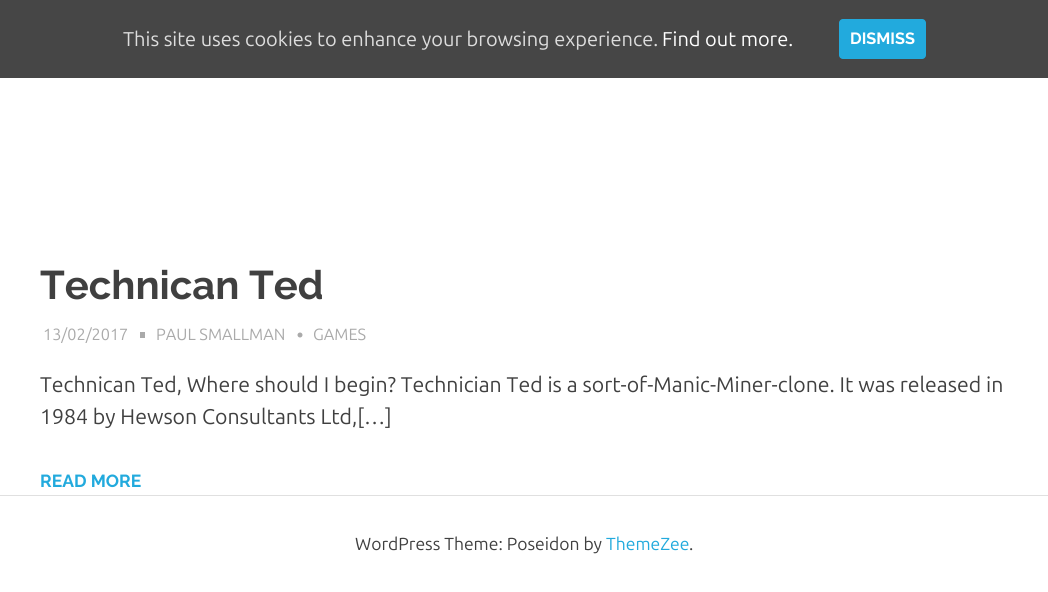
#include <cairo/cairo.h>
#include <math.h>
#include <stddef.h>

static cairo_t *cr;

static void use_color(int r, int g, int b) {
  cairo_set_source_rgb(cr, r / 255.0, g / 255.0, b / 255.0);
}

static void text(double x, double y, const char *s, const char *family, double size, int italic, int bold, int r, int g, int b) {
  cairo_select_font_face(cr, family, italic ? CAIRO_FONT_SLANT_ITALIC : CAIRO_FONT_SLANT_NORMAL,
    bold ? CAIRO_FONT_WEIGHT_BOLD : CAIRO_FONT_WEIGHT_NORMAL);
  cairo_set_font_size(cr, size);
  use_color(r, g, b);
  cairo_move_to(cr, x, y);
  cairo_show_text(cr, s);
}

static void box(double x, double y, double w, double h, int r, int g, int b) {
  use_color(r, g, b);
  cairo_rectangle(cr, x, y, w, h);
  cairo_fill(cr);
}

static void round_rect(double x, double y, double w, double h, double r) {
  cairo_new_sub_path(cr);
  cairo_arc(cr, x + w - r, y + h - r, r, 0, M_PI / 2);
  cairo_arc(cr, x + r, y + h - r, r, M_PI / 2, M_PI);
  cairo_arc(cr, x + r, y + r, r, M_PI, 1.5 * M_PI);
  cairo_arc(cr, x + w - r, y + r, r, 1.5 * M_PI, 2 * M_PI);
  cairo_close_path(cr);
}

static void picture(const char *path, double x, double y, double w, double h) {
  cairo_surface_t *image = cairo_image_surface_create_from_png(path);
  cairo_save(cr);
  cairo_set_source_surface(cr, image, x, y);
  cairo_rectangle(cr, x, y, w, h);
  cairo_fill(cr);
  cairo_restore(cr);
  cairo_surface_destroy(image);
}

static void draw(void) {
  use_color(255, 255, 255);
  cairo_paint(cr);
  box(0, 0, 1048, 78, 70, 70, 70);
  use_color(34, 170, 221);
  round_rect(839, 19, 87, 40, 4);
  cairo_fill(cr);
  box(140, 332, 5, 6, 170, 170, 170);
  picture("img_01.png", 297, 332, 6, 6);
  box(0, 495, 1048, 1, 224, 224, 224);
  text(123, 46, "This site uses cookies to enhance your browsing experience.", "Ubuntu", 20, 0, 0, 221, 221, 221);
  text(662, 46, "Find out more.", "Ubuntu", 20, 0, 0, 255, 255, 255);
  text(850, 44, "DISMISS", "Raleway", 16.25, 0, 1, 255, 255, 255);
  text(40, 299, "Technican Ted", "Raleway", 40, 0, 1, 64, 64, 64);
  text(43, 340, "13/02/2017", "Ubuntu", 16.25, 0, 0, 170, 170, 170);
  text(156, 340, "PAUL SMALLMAN", "Ubuntu", 16.25, 0, 0, 170, 170, 170);
  text(313, 340, "GAMES", "Ubuntu", 16.25, 0, 0, 170, 170, 170);
  text(40, 392, "Technican Ted, Where should I begin? Technician Ted is a sort-of-Manic-Miner-clone. It was released in", "Ubuntu", 21.25, 0, 0, 64, 64, 64);
  text(40, 424, "1984 by Hewson Consultants Ltd,[…]", "Ubuntu", 21.25, 0, 0, 64, 64, 64);
  text(40, 487, "READ MORE", "Raleway", 17.5, 0, 1, 34, 170, 221);
  text(355, 550, "WordPress Theme: Poseidon by", "Ubuntu", 17.5, 0, 0, 64, 64, 64);
  text(606, 550, "ThemeZee", "Ubuntu", 17.5, 0, 0, 34, 170, 221);
  text(689, 550, ".", "Ubuntu", 17.5, 0, 0, 64, 64, 64);
}

int main(void) {
  cairo_surface_t *surface = cairo_image_surface_create(CAIRO_FORMAT_RGB24, 1048, 592);
  cr = cairo_create(surface);
  cairo_font_options_t *options = cairo_font_options_create();
  cairo_font_options_set_hint_metrics(options, CAIRO_HINT_METRICS_OFF);
  cairo_font_options_set_hint_style(options, CAIRO_HINT_STYLE_NONE);
  cairo_set_font_options(cr, options);
  cairo_set_miter_limit(cr, 4);
  draw();
  cairo_surface_write_to_png(surface, "out.png");
  cairo_font_options_destroy(options);
  cairo_destroy(cr);
  cairo_surface_destroy(surface);
  return 0;
}
